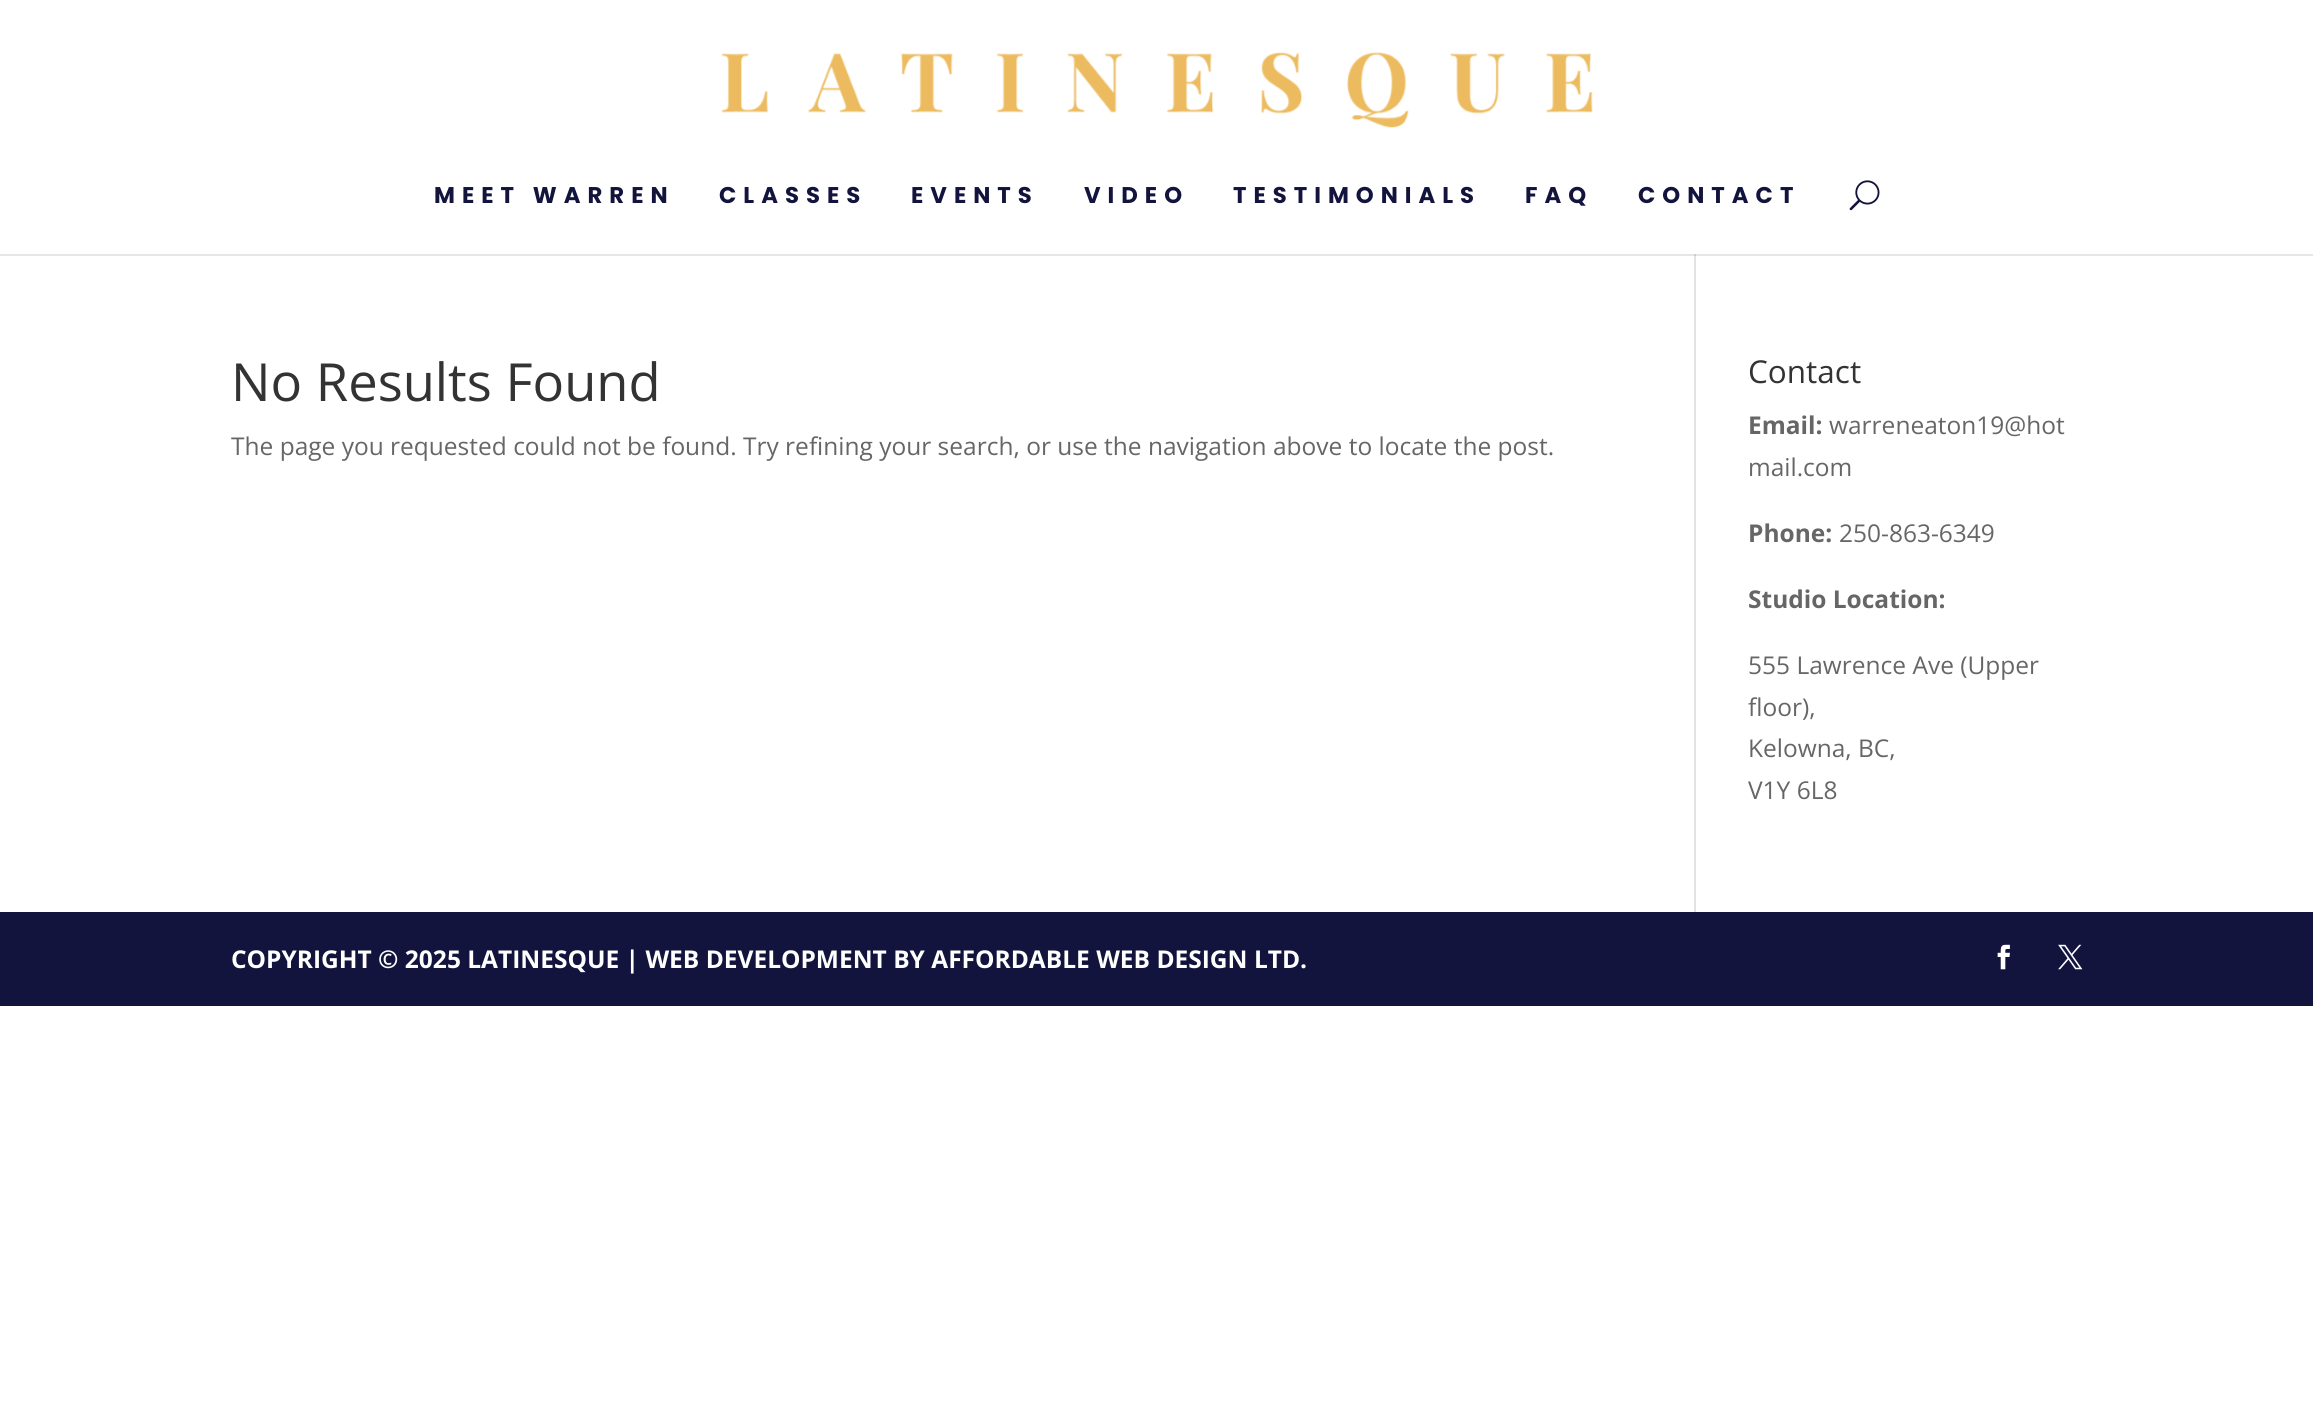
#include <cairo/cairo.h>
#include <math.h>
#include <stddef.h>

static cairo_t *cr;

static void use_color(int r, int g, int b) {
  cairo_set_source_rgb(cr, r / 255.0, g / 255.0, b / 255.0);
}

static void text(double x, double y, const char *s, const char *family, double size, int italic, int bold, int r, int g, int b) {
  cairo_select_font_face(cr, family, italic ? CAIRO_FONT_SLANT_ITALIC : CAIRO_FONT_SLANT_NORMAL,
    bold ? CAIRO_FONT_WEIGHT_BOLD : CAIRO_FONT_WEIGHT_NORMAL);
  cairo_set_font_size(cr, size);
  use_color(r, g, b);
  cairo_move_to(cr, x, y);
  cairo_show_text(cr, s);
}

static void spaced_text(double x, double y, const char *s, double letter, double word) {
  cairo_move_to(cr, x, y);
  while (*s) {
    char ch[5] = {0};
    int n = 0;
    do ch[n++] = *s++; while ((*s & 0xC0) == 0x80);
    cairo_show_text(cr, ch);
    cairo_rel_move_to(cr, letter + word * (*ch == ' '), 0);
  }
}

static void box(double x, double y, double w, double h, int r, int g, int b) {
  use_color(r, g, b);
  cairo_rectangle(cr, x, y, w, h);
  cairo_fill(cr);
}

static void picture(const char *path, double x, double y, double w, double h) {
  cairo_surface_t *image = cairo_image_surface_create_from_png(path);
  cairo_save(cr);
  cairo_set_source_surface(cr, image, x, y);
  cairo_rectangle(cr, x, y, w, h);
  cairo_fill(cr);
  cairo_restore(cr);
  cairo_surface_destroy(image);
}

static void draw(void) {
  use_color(255, 255, 255);
  cairo_paint(cr);
  box(1694, 254, 2, 658, 226, 226, 226);
  cairo_set_source_rgba(cr, 0, 0, 0, 0.1);
  cairo_new_path(cr);
  cairo_move_to(cr, 0, 254);
  cairo_line_to(cr, 0, 256);
  cairo_line_to(cr, 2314, 256);
  cairo_line_to(cr, 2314, 2);
  cairo_line_to(cr, 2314, 254);
  cairo_close_path(cr);
  cairo_fill(cr);
  picture("img_01.png", 721, 52, 872, 76);
  picture("img_02.png", 1849, 180, 31, 31);
  box(0, 912, 2313, 94, 19, 20, 61);
  picture("img_03.png", 1997, 944, 13, 26);
  picture("img_04.png", 2058, 944, 25, 26);
  cairo_select_font_face(cr, "Poppins", CAIRO_FONT_SLANT_NORMAL, CAIRO_FONT_WEIGHT_BOLD);
  cairo_set_font_size(cr, 22.75);
  spaced_text(434, 203, "MEET WARREN", 7, 0);
  spaced_text(719, 203, "CLASSES", 7, 0);
  spaced_text(911, 203, "EVENTS", 7, 0);
  spaced_text(1084, 203, "VIDEO", 7, 0);
  spaced_text(1233, 203, "TESTIMONIALS", 7, 0);
  spaced_text(1525, 203, "FAQ", 7, 0);
  spaced_text(1638, 203, "CONTACT", 7, 0);
  text(231, 401, "No Results Found", "Open Sans", 52.5, 0, 0, 51, 51, 51);
  text(231, 455, "The page you requested could not be found. Try refining your search, or use the navigation above to locate the post.", "Open Sans", 24.5, 0, 0, 102, 102, 102);
  text(1748, 383, "Contact", "Open Sans", 31.5, 0, 0, 51, 51, 51);
  text(1748, 434, "Email:", "Open Sans", 24.5, 0, 1, 102, 102, 102);
  text(1829, 434, "warreneaton19@hot", "Open Sans", 24.5, 0, 0, 102, 102, 102);
  text(1748, 476, "mail.com", "Open Sans", 24.5, 0, 0, 102, 102, 102);
  text(1748, 542, "Phone:", "Open Sans", 24.5, 0, 1, 102, 102, 102);
  text(1839, 542, "250-863-6349", "Open Sans", 24.5, 0, 0, 102, 102, 102);
  text(1748, 608, "Studio Location:", "Open Sans", 24.5, 0, 1, 102, 102, 102);
  text(1748, 674, "555 Lawrence Ave (Upper", "Open Sans", 24.5, 0, 0, 102, 102, 102);
  text(1748, 716, "floor),", "Open Sans", 24.5, 0, 0, 102, 102, 102);
  text(1748, 757, "Kelowna, BC,", "Open Sans", 24.5, 0, 0, 102, 102, 102);
  text(1748, 799, "V1Y 6L8", "Open Sans", 24.5, 0, 0, 102, 102, 102);
  text(231, 968, "COPYRIGHT © 2025 LATINESQUE | WEB DEVELOPMENT BY AFFORDABLE WEB DESIGN LTD.", "Open Sans", 24.5, 0, 1, 255, 255, 255);
}

int main(void) {
  cairo_surface_t *surface = cairo_image_surface_create(CAIRO_FORMAT_RGB24, 2313, 1422);
  cr = cairo_create(surface);
  cairo_font_options_t *options = cairo_font_options_create();
  cairo_font_options_set_hint_metrics(options, CAIRO_HINT_METRICS_OFF);
  cairo_font_options_set_hint_style(options, CAIRO_HINT_STYLE_NONE);
  cairo_set_font_options(cr, options);
  cairo_set_miter_limit(cr, 4);
  draw();
  cairo_surface_write_to_png(surface, "out.png");
  cairo_font_options_destroy(options);
  cairo_destroy(cr);
  cairo_surface_destroy(surface);
  return 0;
}
